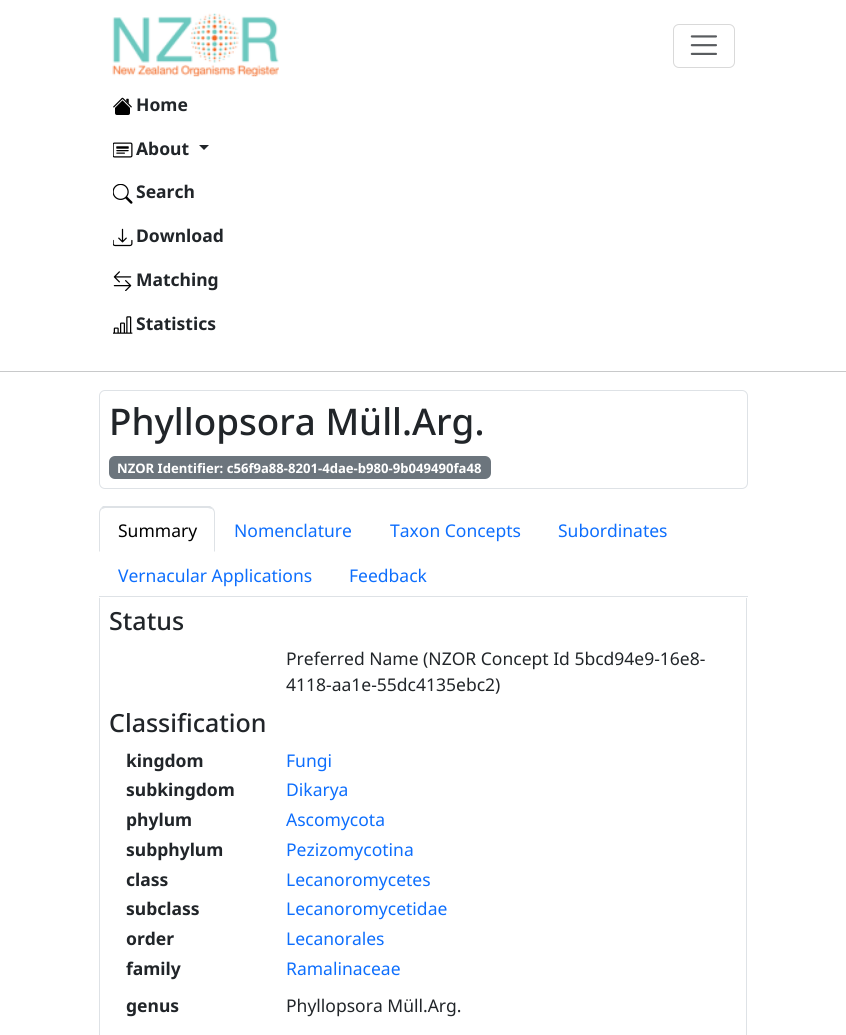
#include <cairo/cairo.h>
#include <math.h>
#include <stddef.h>

static cairo_t *cr;

static void use_color(int r, int g, int b) {
  cairo_set_source_rgb(cr, r / 255.0, g / 255.0, b / 255.0);
}

static void text(double x, double y, const char *s, const char *family, double size, int italic, int bold, int r, int g, int b) {
  cairo_select_font_face(cr, family, italic ? CAIRO_FONT_SLANT_ITALIC : CAIRO_FONT_SLANT_NORMAL,
    bold ? CAIRO_FONT_WEIGHT_BOLD : CAIRO_FONT_WEIGHT_NORMAL);
  cairo_set_font_size(cr, size);
  use_color(r, g, b);
  cairo_move_to(cr, x, y);
  cairo_show_text(cr, s);
}

static void box(double x, double y, double w, double h, int r, int g, int b) {
  use_color(r, g, b);
  cairo_rectangle(cr, x, y, w, h);
  cairo_fill(cr);
}

static void round_rect(double x, double y, double w, double h, double r) {
  cairo_new_sub_path(cr);
  cairo_arc(cr, x + w - r, y + h - r, r, 0, M_PI / 2);
  cairo_arc(cr, x + r, y + h - r, r, M_PI / 2, M_PI);
  cairo_arc(cr, x + r, y + r, r, M_PI, 1.5 * M_PI);
  cairo_arc(cr, x + w - r, y + r, r, 1.5 * M_PI, 2 * M_PI);
  cairo_close_path(cr);
}

static void picture(const char *path, double x, double y, double w, double h) {
  cairo_surface_t *image = cairo_image_surface_create_from_png(path);
  cairo_save(cr);
  cairo_set_source_surface(cr, image, x, y);
  cairo_rectangle(cr, x, y, w, h);
  cairo_fill(cr);
  cairo_restore(cr);
  cairo_surface_destroy(image);
}

static void draw(void) {
  use_color(255, 255, 255);
  cairo_paint(cr);
  picture("img_01.png", 112, 13, 167, 64);
  round_rect(673.5, 24.5, 61, 43, 5.5);
  use_color(217, 217, 217);
  cairo_set_line_width(cr, 1);
  cairo_stroke(cr);
  picture("img_02.png", 690, 35, 27, 20);
  picture("img_03.png", 113, 97, 19, 18);
  picture("img_04.png", 113, 142, 20, 16);
  use_color(33, 37, 41);
  cairo_new_path(cr);
  cairo_move_to(cr, 199, 145);
  cairo_line_to(cr, 209, 145);
  cairo_line_to(cr, 204, 150);
  cairo_close_path(cr);
  cairo_fill(cr);
  picture("img_05.png", 113, 184, 20, 20);
  picture("img_06.png", 113, 228, 20, 19);
  picture("img_07.png", 113, 271, 19, 20);
  picture("img_08.png", 113, 316, 20, 18);
  box(0, 371, 846, 1, 200, 201, 202);
  round_rect(99.5, 390.5, 648, 98, 5.5);
  use_color(222, 226, 230);
  cairo_stroke(cr);
  use_color(108, 117, 125);
  round_rect(109, 456, 382, 23, 6);
  cairo_fill(cr);
  box(99, 596, 649, 1, 222, 226, 230);
  cairo_new_path(cr);
  cairo_move_to(cr, 105, 508);
  cairo_line_to(cr, 102, 509);
  cairo_line_to(cr, 101, 508);
  cairo_line_to(cr, 103, 506);
  cairo_line_to(cr, 210, 506);
  cairo_line_to(cr, 213, 508);
  cairo_line_to(cr, 212, 509);
  cairo_line_to(cr, 208, 508);
  cairo_close_path(cr);
  cairo_fill(cr);
  cairo_new_path(cr);
  cairo_move_to(cr, 215, 552);
  cairo_line_to(cr, 215, 513);
  cairo_curve_to(cr, 215, 511, 214, 509, 213, 508);
  cairo_line_to(cr, 212, 509);
  cairo_curve_to(cr, 213, 510, 214, 511, 214, 513);
  cairo_line_to(cr, 214, 551);
  cairo_close_path(cr);
  cairo_fill(cr);
  cairo_new_path(cr);
  cairo_move_to(cr, 99, 552);
  cairo_line_to(cr, 99, 513);
  cairo_curve_to(cr, 99, 511, 100, 509, 101, 508);
  cairo_line_to(cr, 102, 509);
  cairo_curve_to(cr, 101, 510, 100, 511, 100, 513);
  cairo_line_to(cr, 100, 551);
  cairo_close_path(cr);
  cairo_fill(cr);
  box(746, 598, 1, 437, 222, 226, 230);
  box(99, 598, 1, 437, 222, 226, 230);
  text(136, 111, "Home", "Noto Sans", 17.5, 0, 1, 33, 37, 41);
  text(136, 155, "About", "Noto Sans", 17.5, 0, 1, 33, 37, 41);
  text(136, 198, "Search", "Noto Sans", 17.5, 0, 1, 33, 37, 41);
  text(136, 242, "Download", "Noto Sans", 17.5, 0, 1, 33, 37, 41);
  text(136, 286, "Matching", "Noto Sans", 17.5, 0, 1, 33, 37, 41);
  text(136, 330, "Statistics", "Noto Sans", 17.5, 0, 1, 33, 37, 41);
  text(109, 435, "Phyllopsora Müll.Arg.", "Noto Sans Medium", 36.75, 0, 0, 33, 37, 41);
  text(117, 473, "NZOR Identifier: c56f9a88-8201-4dae-b980-9b049490fa48", "Noto Sans", 13.1, 0, 1, 255, 255, 255);
  text(118, 537, "Summary", "Noto Sans", 17.5, 0, 0, 0, 0, 0);
  text(234, 537, "Nomenclature", "Noto Sans", 17.5, 0, 0, 13, 110, 253);
  text(390, 537, "Taxon Concepts", "Noto Sans", 17.5, 0, 0, 13, 110, 253);
  text(558, 537, "Subordinates", "Noto Sans", 17.5, 0, 0, 13, 110, 253);
  text(118, 582, "Vernacular Applications", "Noto Sans", 17.5, 0, 0, 13, 110, 253);
  text(349, 582, "Feedback", "Noto Sans", 17.5, 0, 0, 13, 110, 253);
  text(109, 630, "Status", "Noto Sans Medium", 25, 0, 0, 33, 37, 41);
  text(286, 665, "Preferred Name (NZOR Concept Id 5bcd94e9-16e8-", "Noto Sans", 17.5, 0, 0, 33, 37, 41);
  text(286, 691, "4118-aa1e-55dc4135ebc2)", "Noto Sans", 17.5, 0, 0, 33, 37, 41);
  text(109, 732, "Classification", "Noto Sans Medium", 25, 0, 0, 33, 37, 41);
  text(126, 767, "kingdom", "Noto Sans", 17.5, 0, 1, 33, 37, 41);
  text(286, 767, "Fungi", "Noto Sans", 17.5, 0, 0, 13, 110, 253);
  text(126, 796, "subkingdom", "Noto Sans", 17.5, 0, 1, 33, 37, 41);
  text(286, 796, "Dikarya", "Noto Sans", 17.5, 0, 0, 13, 110, 253);
  text(126, 826, "phylum", "Noto Sans", 17.5, 0, 1, 33, 37, 41);
  text(286, 826, "Ascomycota", "Noto Sans", 17.5, 0, 0, 13, 110, 253);
  text(126, 856, "subphylum", "Noto Sans", 17.5, 0, 1, 33, 37, 41);
  text(286, 856, "Pezizomycotina", "Noto Sans", 17.5, 0, 0, 13, 110, 253);
  text(126, 886, "class", "Noto Sans", 17.5, 0, 1, 33, 37, 41);
  text(286, 886, "Lecanoromycetes", "Noto Sans", 17.5, 0, 0, 13, 110, 253);
  text(126, 915, "subclass", "Noto Sans", 17.5, 0, 1, 33, 37, 41);
  text(286, 915, "Lecanoromycetidae", "Noto Sans", 17.5, 0, 0, 13, 110, 253);
  text(126, 945, "order", "Noto Sans", 17.5, 0, 1, 33, 37, 41);
  text(286, 945, "Lecanorales", "Noto Sans", 17.5, 0, 0, 13, 110, 253);
  text(126, 975, "family", "Noto Sans", 17.5, 0, 1, 33, 37, 41);
  text(286, 975, "Ramalinaceae", "Noto Sans", 17.5, 0, 0, 13, 110, 253);
  text(126, 1012, "genus", "Noto Sans", 17.5, 0, 1, 33, 37, 41);
  text(286, 1012, "Phyllopsora Müll.Arg.", "Noto Sans", 17.5, 0, 0, 33, 37, 41);
}

int main(void) {
  cairo_surface_t *surface = cairo_image_surface_create(CAIRO_FORMAT_RGB24, 846, 1035);
  cr = cairo_create(surface);
  cairo_font_options_t *options = cairo_font_options_create();
  cairo_font_options_set_hint_metrics(options, CAIRO_HINT_METRICS_OFF);
  cairo_font_options_set_hint_style(options, CAIRO_HINT_STYLE_NONE);
  cairo_set_font_options(cr, options);
  cairo_set_miter_limit(cr, 4);
  draw();
  cairo_surface_write_to_png(surface, "out.png");
  cairo_font_options_destroy(options);
  cairo_destroy(cr);
  cairo_surface_destroy(surface);
  return 0;
}
